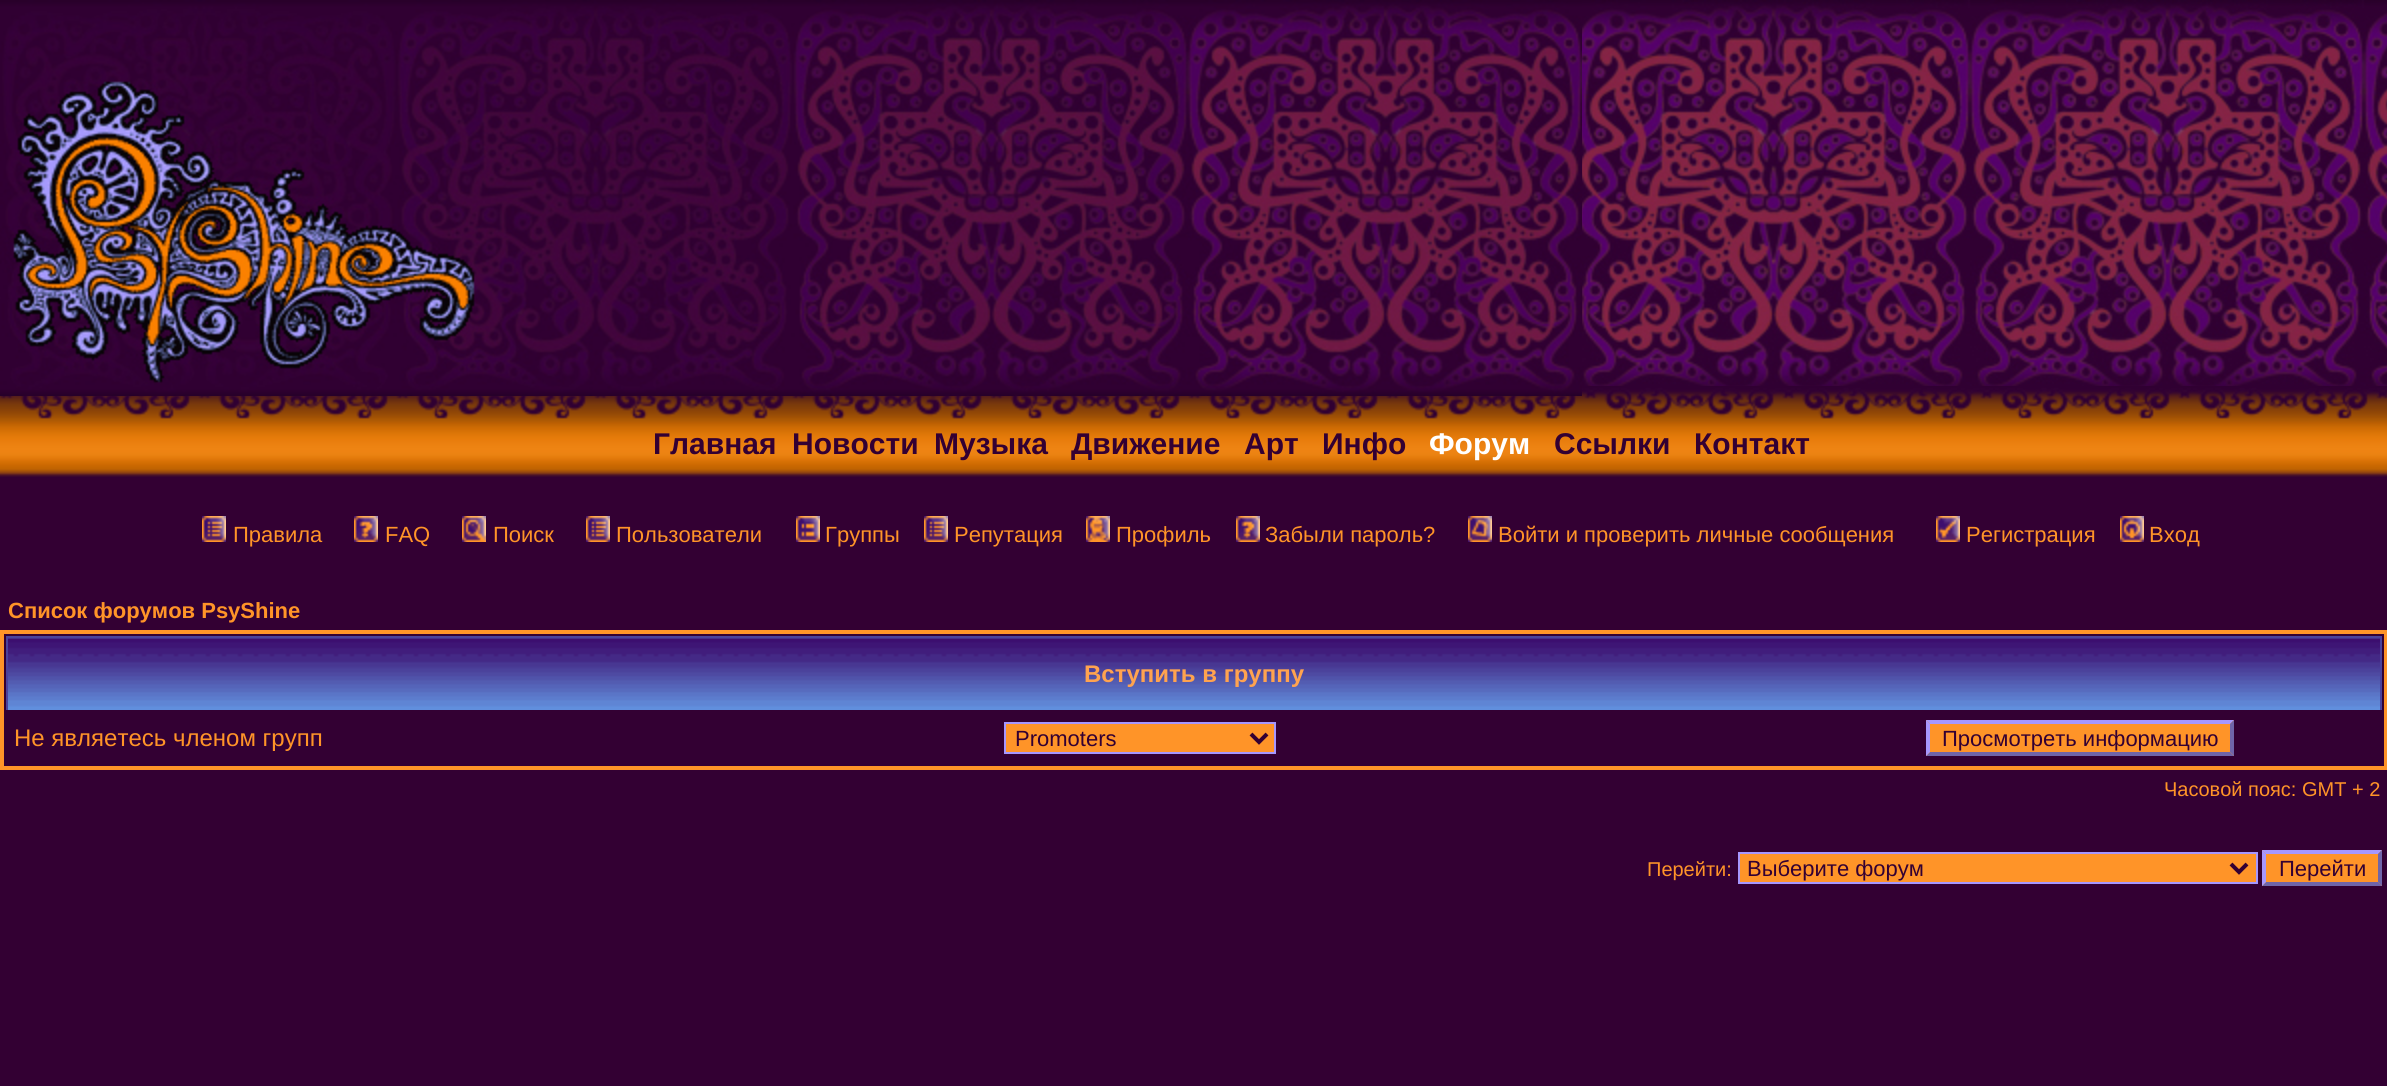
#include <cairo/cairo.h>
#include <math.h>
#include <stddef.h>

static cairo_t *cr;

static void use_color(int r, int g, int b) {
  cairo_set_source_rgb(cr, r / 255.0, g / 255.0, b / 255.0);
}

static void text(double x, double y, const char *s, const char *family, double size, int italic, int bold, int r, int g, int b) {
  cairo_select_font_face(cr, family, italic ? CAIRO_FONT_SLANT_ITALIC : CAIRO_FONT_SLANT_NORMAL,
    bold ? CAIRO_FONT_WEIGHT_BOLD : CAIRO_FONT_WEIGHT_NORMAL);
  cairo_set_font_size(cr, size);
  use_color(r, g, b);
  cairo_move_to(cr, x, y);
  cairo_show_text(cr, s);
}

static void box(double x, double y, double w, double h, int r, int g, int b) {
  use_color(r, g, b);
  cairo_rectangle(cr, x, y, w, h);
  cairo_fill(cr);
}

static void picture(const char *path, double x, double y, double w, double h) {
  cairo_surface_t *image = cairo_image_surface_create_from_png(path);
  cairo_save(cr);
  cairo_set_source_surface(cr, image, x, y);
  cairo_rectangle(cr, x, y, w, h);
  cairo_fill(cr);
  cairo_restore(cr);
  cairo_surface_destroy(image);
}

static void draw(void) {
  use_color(51, 0, 51);
  cairo_paint(cr);
  picture("img_01.png", 1582, 0, 805, 386);
  picture("img_03.png", 0, 386, 2387, 91);
  picture("img_02.png", 0, 0, 1582, 396);
  picture("img_04.png", 202, 516, 24, 26);
  picture("img_05.png", 354, 516, 24, 26);
  picture("img_06.png", 462, 516, 24, 26);
  picture("img_04.png", 586, 516, 24, 26);
  picture("img_07.png", 796, 516, 24, 26);
  picture("img_04.png", 924, 516, 24, 26);
  picture("img_08.png", 1086, 516, 24, 26);
  picture("img_05.png", 1236, 516, 24, 26);
  picture("img_09.png", 1468, 516, 24, 26);
  picture("img_10.png", 1936, 516, 24, 26);
  picture("img_11.png", 2120, 516, 24, 26);
  cairo_rectangle(cr, 2, 632, 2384, 136);
  use_color(255, 148, 40);
  cairo_set_line_width(cr, 4);
  cairo_stroke(cr);
  picture("img_12.png", 8, 638, 2372, 72);
  box(6, 636, 2376, 2, 75, 66, 155);
  box(2380, 636, 2, 74, 75, 66, 155);
  box(6, 636, 2, 74, 75, 66, 155);
  use_color(255, 148, 40);
  cairo_rectangle(cr, 1005, 723, 270, 30);
  cairo_fill_preserve(cr);
  use_color(166, 151, 254);
  cairo_set_line_width(cr, 2);
  cairo_stroke(cr);
  cairo_new_path(cr);
  cairo_move_to(cr, 1251, 734);
  cairo_line_to(cr, 1259, 742);
  cairo_line_to(cr, 1267, 734);
  use_color(51, 0, 51);
  cairo_set_line_width(cr, 4);
  cairo_stroke(cr);
  box(1926, 720, 308, 36, 255, 148, 40);
  use_color(166, 151, 254);
  cairo_new_path(cr);
  cairo_move_to(cr, 1926, 720);
  cairo_line_to(cr, 2234, 720);
  cairo_line_to(cr, 2230, 724);
  cairo_line_to(cr, 1930, 724);
  cairo_close_path(cr);
  cairo_fill(cr);
  use_color(111, 101, 169);
  cairo_new_path(cr);
  cairo_move_to(cr, 2234, 720);
  cairo_line_to(cr, 2234, 756);
  cairo_line_to(cr, 2230, 752);
  cairo_line_to(cr, 2230, 724);
  cairo_close_path(cr);
  cairo_fill(cr);
  cairo_new_path(cr);
  cairo_move_to(cr, 2234, 756);
  cairo_line_to(cr, 1926, 756);
  cairo_line_to(cr, 1930, 752);
  cairo_line_to(cr, 2230, 752);
  cairo_close_path(cr);
  cairo_fill(cr);
  use_color(166, 151, 254);
  cairo_new_path(cr);
  cairo_move_to(cr, 1926, 756);
  cairo_line_to(cr, 1926, 720);
  cairo_line_to(cr, 1930, 724);
  cairo_line_to(cr, 1930, 752);
  cairo_close_path(cr);
  cairo_fill(cr);
  use_color(255, 148, 40);
  cairo_rectangle(cr, 1739, 853, 518, 30);
  cairo_fill_preserve(cr);
  use_color(166, 151, 254);
  cairo_set_line_width(cr, 2);
  cairo_stroke(cr);
  cairo_new_path(cr);
  cairo_move_to(cr, 2231, 864);
  cairo_line_to(cr, 2239, 872);
  cairo_line_to(cr, 2247, 864);
  use_color(51, 0, 51);
  cairo_set_line_width(cr, 4);
  cairo_stroke(cr);
  box(2262, 850, 120, 36, 255, 148, 40);
  use_color(166, 151, 254);
  cairo_new_path(cr);
  cairo_move_to(cr, 2262, 850);
  cairo_line_to(cr, 2382, 850);
  cairo_line_to(cr, 2378, 854);
  cairo_line_to(cr, 2266, 854);
  cairo_close_path(cr);
  cairo_fill(cr);
  use_color(111, 101, 169);
  cairo_new_path(cr);
  cairo_move_to(cr, 2382, 850);
  cairo_line_to(cr, 2382, 886);
  cairo_line_to(cr, 2378, 882);
  cairo_line_to(cr, 2378, 854);
  cairo_close_path(cr);
  cairo_fill(cr);
  cairo_new_path(cr);
  cairo_move_to(cr, 2382, 886);
  cairo_line_to(cr, 2262, 886);
  cairo_line_to(cr, 2266, 882);
  cairo_line_to(cr, 2378, 882);
  cairo_close_path(cr);
  cairo_fill(cr);
  use_color(166, 151, 254);
  cairo_new_path(cr);
  cairo_move_to(cr, 2262, 886);
  cairo_line_to(cr, 2262, 850);
  cairo_line_to(cr, 2266, 854);
  cairo_line_to(cr, 2266, 882);
  cairo_close_path(cr);
  cairo_fill(cr);
  text(653, 454, "Главная", "Liberation Sans", 30, 0, 1, 51, 0, 51);
  text(792, 454, "Новости", "Liberation Sans", 30, 0, 1, 51, 0, 51);
  text(934, 454, "Музыка", "Liberation Sans", 30, 0, 1, 51, 0, 51);
  text(1071, 454, "Движение", "Liberation Sans", 30, 0, 1, 51, 0, 51);
  text(1244, 454, "Арт", "Liberation Sans", 30, 0, 1, 51, 0, 51);
  text(1322, 454, "Инфо", "Liberation Sans", 30, 0, 1, 51, 0, 51);
  text(1429, 454, "Форум", "Liberation Sans", 30, 0, 1, 255, 255, 255);
  text(1554, 454, "Ссылки", "Liberation Sans", 30, 0, 1, 51, 0, 51);
  text(1694, 454, "Контакт", "Liberation Sans", 30, 0, 1, 51, 0, 51);
  text(233, 542, "Правила", "Liberation Sans", 22, 0, 0, 255, 148, 40);
  text(385, 542, "FAQ", "Liberation Sans", 22, 0, 0, 255, 148, 40);
  text(493, 542, "Поиск", "Liberation Sans", 22, 0, 0, 255, 148, 40);
  text(616, 542, "Пользователи", "Liberation Sans", 22, 0, 0, 255, 148, 40);
  text(825, 542, "Группы", "Liberation Sans", 22, 0, 0, 255, 148, 40);
  text(954, 542, "Репутация", "Liberation Sans", 22, 0, 0, 255, 148, 40);
  text(1116, 542, "Профиль", "Liberation Sans", 22, 0, 0, 255, 148, 40);
  text(1265, 542, "Забыли пароль?", "Liberation Sans", 22, 0, 0, 255, 148, 40);
  text(1498, 542, "Войти и проверить личные сообщения", "Liberation Sans", 22, 0, 0, 255, 148, 40);
  text(1966, 542, "Регистрация", "Liberation Sans", 22, 0, 0, 255, 148, 40);
  text(2149, 542, "Вход", "Liberation Sans", 22, 0, 0, 255, 148, 40);
  text(8, 618, "Список форумов PsyShine", "Liberation Sans", 22, 0, 1, 255, 148, 40);
  text(1084, 682, "Вступить в группу", "Liberation Sans", 24, 0, 1, 255, 163, 79);
  text(14, 746, "Не являетесь членом групп", "Liberation Sans", 24, 0, 0, 255, 148, 40);
  text(1015, 746, "Promoters", "Liberation Sans", 22, 0, 0, 51, 0, 51);
  text(1942, 746, "Просмотреть информацию", "Liberation Sans", 22, 0, 0, 51, 0, 51);
  text(2164, 796, "Часовой пояс: GMT + 2", "Liberation Sans", 20, 0, 0, 255, 148, 40);
  text(1647, 876, "Перейти:", "Liberation Sans", 20, 0, 0, 255, 148, 40);
  text(1747, 876, "Выберите форум", "Liberation Sans", 22, 0, 0, 51, 0, 51);
  text(2279, 876, "Перейти", "Liberation Sans", 22, 0, 0, 51, 0, 51);
}

int main(void) {
  cairo_surface_t *surface = cairo_image_surface_create(CAIRO_FORMAT_RGB24, 2387, 1086);
  cr = cairo_create(surface);
  cairo_font_options_t *options = cairo_font_options_create();
  cairo_font_options_set_hint_metrics(options, CAIRO_HINT_METRICS_OFF);
  cairo_font_options_set_hint_style(options, CAIRO_HINT_STYLE_NONE);
  cairo_set_font_options(cr, options);
  cairo_set_miter_limit(cr, 4);
  draw();
  cairo_surface_write_to_png(surface, "out.png");
  cairo_font_options_destroy(options);
  cairo_destroy(cr);
  cairo_surface_destroy(surface);
  return 0;
}
